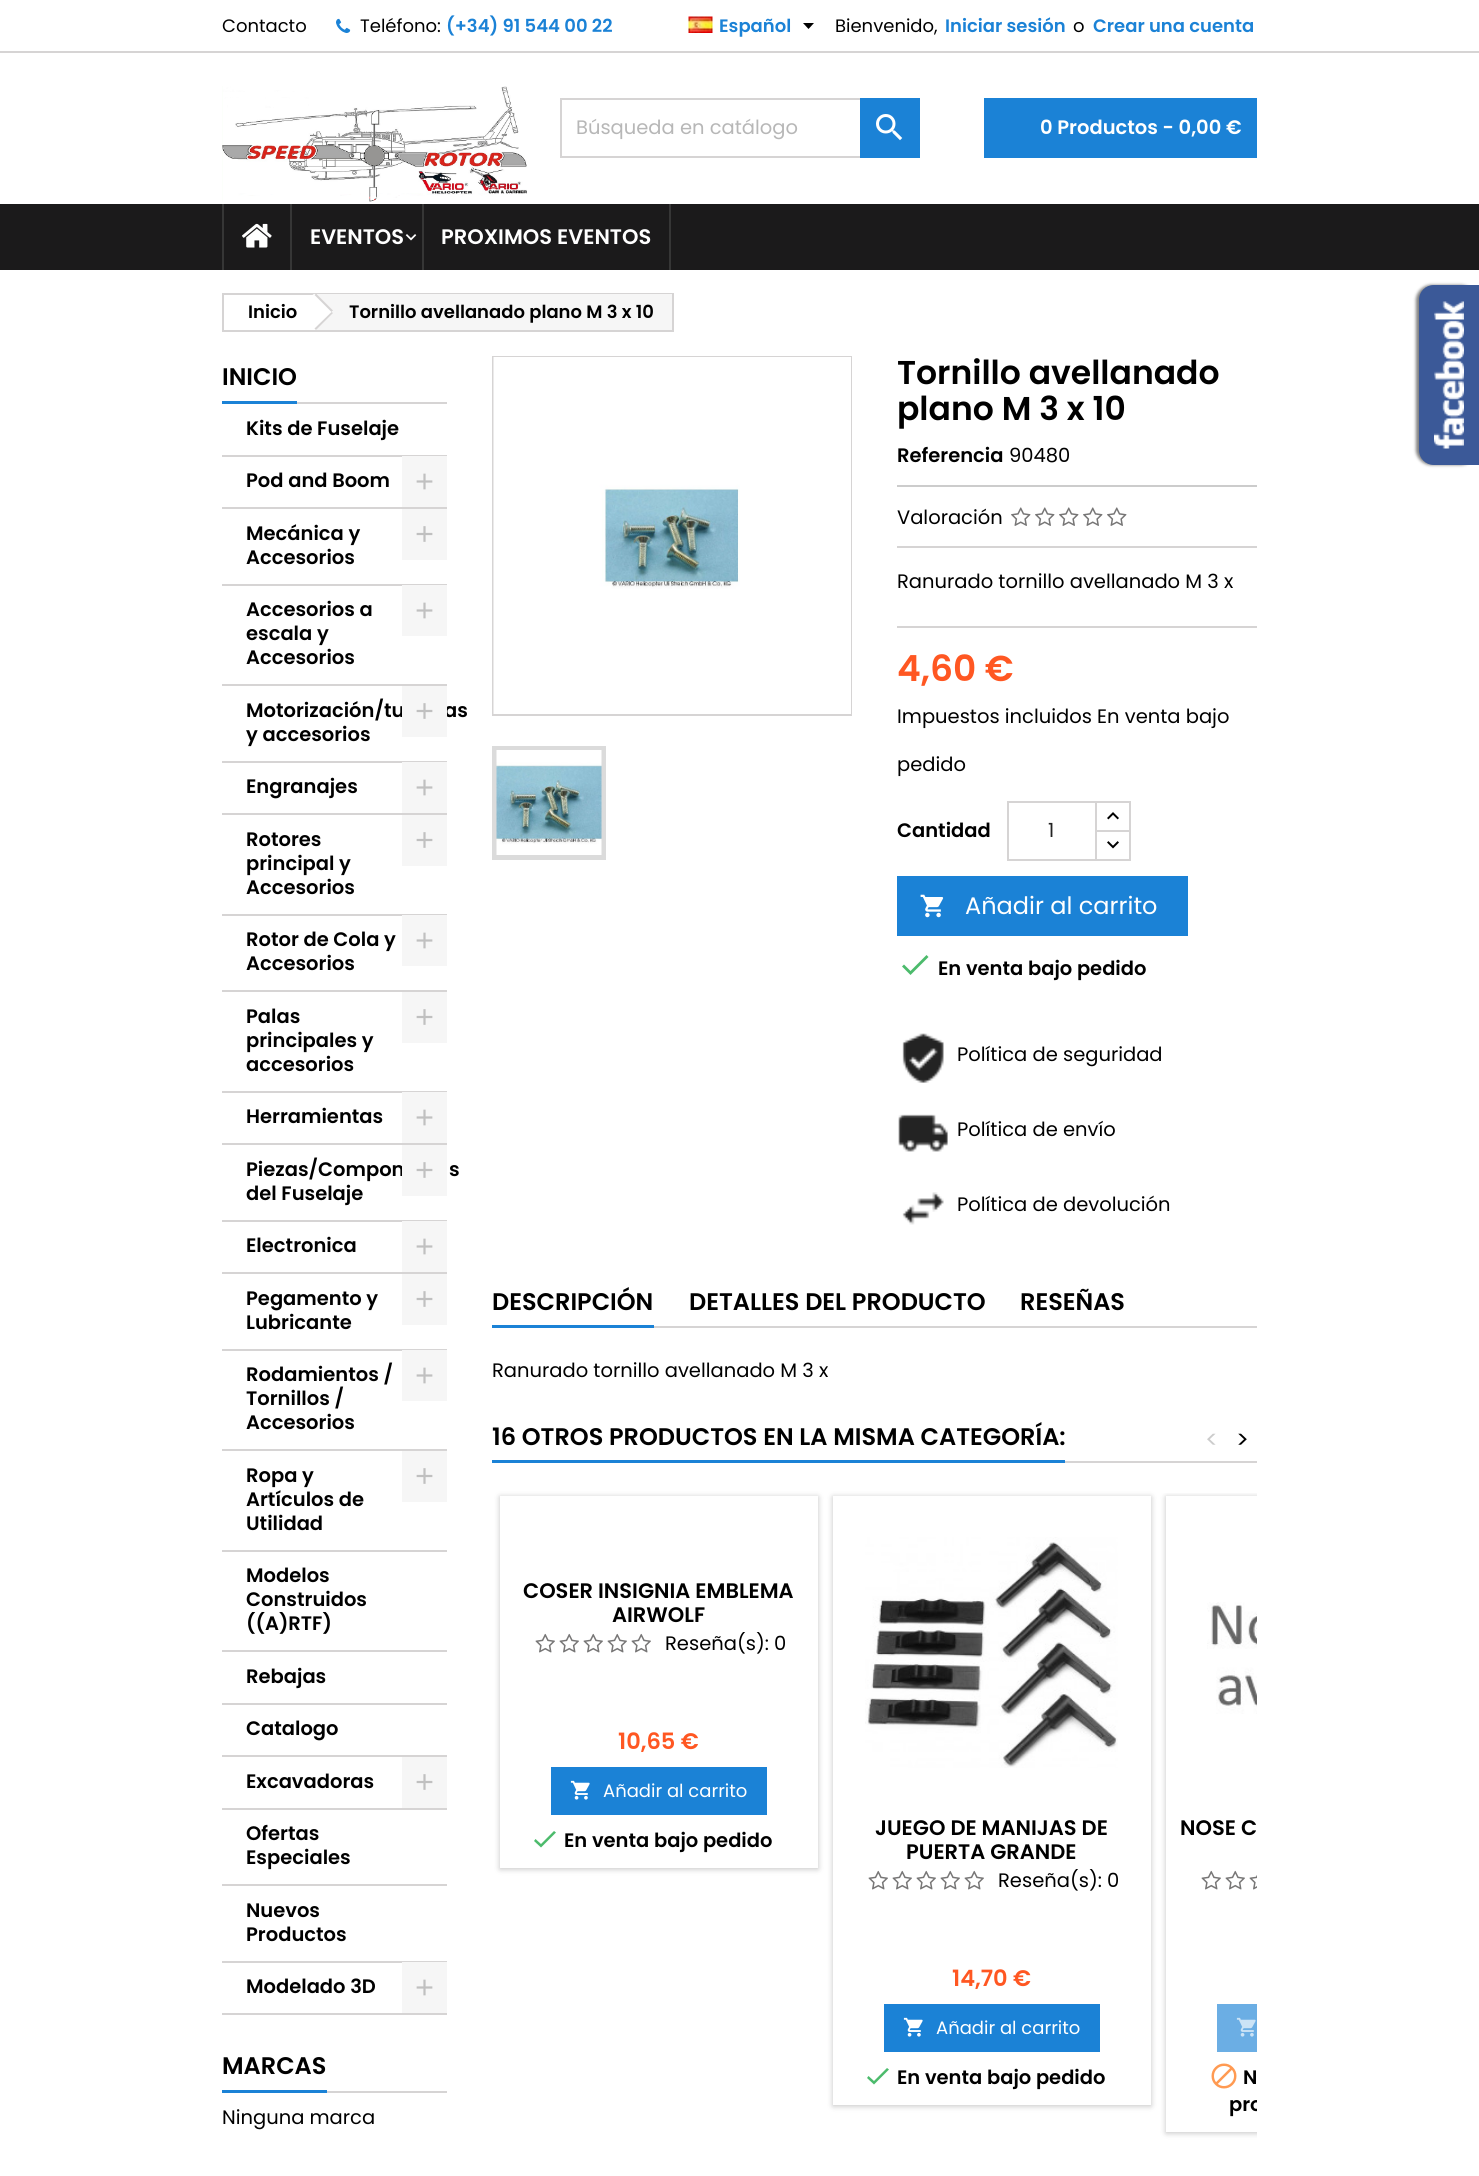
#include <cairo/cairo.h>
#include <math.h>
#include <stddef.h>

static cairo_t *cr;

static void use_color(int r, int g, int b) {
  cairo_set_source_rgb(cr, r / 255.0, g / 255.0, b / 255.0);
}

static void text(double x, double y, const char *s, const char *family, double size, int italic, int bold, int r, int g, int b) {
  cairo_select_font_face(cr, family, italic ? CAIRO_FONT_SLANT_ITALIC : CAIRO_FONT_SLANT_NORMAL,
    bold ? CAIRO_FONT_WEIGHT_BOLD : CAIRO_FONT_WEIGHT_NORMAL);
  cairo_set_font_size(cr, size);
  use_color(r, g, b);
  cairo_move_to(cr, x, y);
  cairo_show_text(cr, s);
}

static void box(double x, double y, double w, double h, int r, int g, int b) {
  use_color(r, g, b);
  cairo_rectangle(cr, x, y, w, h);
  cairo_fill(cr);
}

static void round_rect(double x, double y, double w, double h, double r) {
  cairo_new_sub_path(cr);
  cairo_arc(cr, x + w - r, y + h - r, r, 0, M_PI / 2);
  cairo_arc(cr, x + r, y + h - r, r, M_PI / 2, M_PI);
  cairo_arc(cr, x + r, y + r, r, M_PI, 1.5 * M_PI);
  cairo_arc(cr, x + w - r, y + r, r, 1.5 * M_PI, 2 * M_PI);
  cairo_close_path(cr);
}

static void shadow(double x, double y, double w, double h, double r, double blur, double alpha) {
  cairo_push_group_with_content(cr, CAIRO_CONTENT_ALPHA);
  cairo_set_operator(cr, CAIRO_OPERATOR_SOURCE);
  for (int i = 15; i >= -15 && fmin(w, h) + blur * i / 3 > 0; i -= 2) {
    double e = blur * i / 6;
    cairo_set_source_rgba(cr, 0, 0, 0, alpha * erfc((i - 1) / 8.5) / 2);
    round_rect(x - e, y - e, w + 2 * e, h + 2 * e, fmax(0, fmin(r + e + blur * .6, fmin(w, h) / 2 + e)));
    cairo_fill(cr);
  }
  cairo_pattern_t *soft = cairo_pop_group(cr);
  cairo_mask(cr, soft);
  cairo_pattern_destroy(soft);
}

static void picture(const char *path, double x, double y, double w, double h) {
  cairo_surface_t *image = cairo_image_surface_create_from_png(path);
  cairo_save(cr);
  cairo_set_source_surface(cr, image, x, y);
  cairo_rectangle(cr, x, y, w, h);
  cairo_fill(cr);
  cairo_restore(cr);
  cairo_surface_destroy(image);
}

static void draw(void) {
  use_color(255, 255, 255);
  cairo_paint(cr);
  box(0, 51, 1479, 2, 214, 212, 212);
  picture("img_01.png", 336, 18, 15, 15);
  picture("img_02.png", 688, 16, 25, 17);
  use_color(0, 0, 0);
  cairo_new_path(cr);
  cairo_move_to(cr, 803, 23);
  cairo_line_to(cr, 814, 23);
  cairo_line_to(cr, 808.5, 29);
  cairo_close_path(cr);
  cairo_fill(cr);
  picture("img_03.png", 222, 86, 305, 116);
  cairo_rectangle(cr, 561, 99, 358, 58);
  use_color(214, 212, 212);
  cairo_stroke(cr);
  box(860, 98, 60, 60, 27, 130, 214);
  picture("img_04.png", 876, 114, 27, 27);
  box(984, 98, 273, 60, 27, 130, 214);
  box(0, 204, 1479, 66, 27, 26, 27);
  box(222, 204, 2, 66, 54, 54, 54);
  picture("img_05.png", 242, 223, 30, 25);
  box(290, 204, 2, 66, 54, 54, 54);
  picture("img_06.png", 405, 234, 12, 7);
  box(669, 204, 2, 66, 54, 54, 54);
  box(422, 204, 2, 66, 54, 54, 54);
  cairo_rectangle(cr, 223, 294, 450, 37);
  use_color(214, 212, 212);
  cairo_stroke(cr);
  box(317, 294, 355, 36, 246, 246, 246);
  box(297, 402, 150, 2, 214, 212, 212);
  box(222, 401, 75, 3, 27, 130, 214);
  box(222, 455, 225, 2, 214, 212, 212);
  box(222, 507, 225, 2, 214, 212, 212);
  box(402, 456, 45, 51, 246, 246, 246);
  picture("img_07.png", 416, 473, 17, 17);
  box(222, 584, 225, 2, 214, 212, 212);
  box(402, 509, 45, 51, 246, 246, 246);
  picture("img_08.png", 416, 526, 17, 16);
  box(222, 684, 225, 2, 214, 212, 212);
  box(402, 585, 45, 51, 246, 246, 246);
  picture("img_07.png", 416, 602, 17, 17);
  box(222, 761, 225, 2, 214, 212, 212);
  box(222, 813, 225, 2, 214, 212, 212);
  box(402, 762, 45, 51, 246, 246, 246);
  picture("img_07.png", 416, 779, 17, 17);
  box(222, 914, 225, 2, 214, 212, 212);
  box(402, 815, 45, 51, 246, 246, 246);
  picture("img_08.png", 416, 832, 17, 16);
  box(222, 990, 225, 2, 214, 212, 212);
  box(402, 915, 45, 51, 246, 246, 246);
  picture("img_07.png", 416, 932, 17, 17);
  box(222, 1091, 225, 2, 214, 212, 212);
  box(402, 992, 45, 51, 246, 246, 246);
  picture("img_08.png", 416, 1009, 17, 16);
  box(222, 1143, 225, 2, 214, 212, 212);
  box(402, 1092, 45, 51, 246, 246, 246);
  picture("img_07.png", 416, 1109, 17, 17);
  box(222, 1220, 225, 2, 214, 212, 212);
  box(222, 1272, 225, 2, 214, 212, 212);
  box(402, 1221, 45, 51, 246, 246, 246);
  picture("img_07.png", 416, 1238, 17, 17);
  box(222, 1349, 225, 2, 214, 212, 212);
  box(402, 1274, 45, 51, 246, 246, 246);
  picture("img_08.png", 416, 1291, 17, 16);
  box(222, 1449, 225, 2, 214, 212, 212);
  box(402, 1350, 45, 51, 246, 246, 246);
  picture("img_07.png", 416, 1367, 17, 17);
  box(222, 1550, 225, 2, 214, 212, 212);
  box(402, 1451, 45, 51, 246, 246, 246);
  picture("img_08.png", 416, 1468, 17, 16);
  box(222, 1650, 225, 2, 214, 212, 212);
  box(222, 1703, 225, 2, 214, 212, 212);
  box(222, 1755, 225, 2, 214, 212, 212);
  box(222, 1808, 225, 2, 214, 212, 212);
  box(402, 1757, 45, 51, 246, 246, 246);
  picture("img_08.png", 416, 1774, 17, 16);
  box(222, 1884, 225, 2, 214, 212, 212);
  box(222, 1961, 225, 2, 214, 212, 212);
  box(222, 2013, 225, 2, 214, 212, 212);
  box(402, 1962, 45, 51, 246, 246, 246);
  picture("img_07.png", 416, 1979, 17, 17);
  box(327, 2091, 120, 2, 214, 212, 212);
  box(222, 2090, 105, 3, 27, 130, 214);
  cairo_rectangle(cr, 493, 357, 358, 358);
  use_color(214, 212, 212);
  cairo_stroke(cr);
  picture("img_09.png", 493, 357, 247, 357);
  box(740, 357, 111, 357, 255, 255, 255);
  cairo_rectangle(cr, 494.5, 748.5, 109, 109);
  use_color(219, 219, 219);
  cairo_set_line_width(cr, 5);
  cairo_stroke(cr);
  picture("img_10.png", 496, 750, 106, 105);
  box(897, 485, 360, 2, 204, 204, 204);
  picture("img_11.png", 1011, 507, 20, 19);
  picture("img_11.png", 1035, 507, 20, 19);
  picture("img_11.png", 1059, 507, 20, 19);
  picture("img_11.png", 1083, 507, 20, 19);
  picture("img_11.png", 1107, 507, 20, 19);
  box(897, 546, 360, 2, 214, 212, 212);
  box(897, 626, 360, 2, 214, 212, 212);
  cairo_rectangle(cr, 1096, 802, 34, 30);
  cairo_set_line_width(cr, 2);
  cairo_stroke(cr);
  box(1097, 832, 32, 1, 255, 255, 255);
  cairo_rectangle(cr, 1096, 831, 34, 29);
  use_color(214, 212, 212);
  cairo_stroke(cr);
  cairo_rectangle(cr, 1008, 802, 88, 58);
  cairo_stroke(cr);
  picture("img_12.png", 1107, 812, 12, 8);
  picture("img_13.png", 1107, 841, 12, 8);
  box(897, 876, 291, 60, 27, 130, 214);
  picture("img_14.png", 920, 894, 24, 24);
  use_color(76, 187, 108);
  cairo_new_path(cr);
  cairo_move_to(cr, 910.5, 971);
  cairo_line_to(cr, 926.5, 955);
  cairo_line_to(cr, 928.5, 957);
  cairo_line_to(cr, 910.5, 975);
  cairo_line_to(cr, 902, 966.5);
  cairo_line_to(cr, 904, 964.5);
  cairo_close_path(cr);
  cairo_fill(cr);
  picture("img_15.png", 902, 1033, 42, 50);
  picture("img_16.png", 898, 1114, 50, 38);
  picture("img_17.png", 902, 1192, 42, 33);
  box(654, 1326, 603, 2, 214, 212, 212);
  box(492, 1325, 162, 3, 27, 130, 214);
  box(1065, 1461, 192, 2, 214, 212, 212);
  box(492, 1460, 573, 3, 27, 130, 214);
  use_color(0, 0, 0);
  shadow(500, 1497, 318, 372, 0, 3, 0.24);
  box(500, 1496, 318, 372, 255, 255, 255);
  picture("img_18.png", 535, 1633, 20, 20);
  picture("img_18.png", 559, 1633, 20, 20);
  picture("img_18.png", 583, 1633, 20, 20);
  picture("img_18.png", 607, 1633, 20, 20);
  picture("img_18.png", 631, 1633, 20, 20);
  box(551, 1767, 216, 48, 27, 130, 214);
  picture("img_19.png", 570, 1780, 20, 20);
  use_color(76, 187, 108);
  cairo_new_path(cr);
  cairo_move_to(cr, 541, 1844);
  cairo_line_to(cr, 554, 1831);
  cairo_line_to(cr, 556, 1832.5);
  cairo_line_to(cr, 541, 1847.5);
  cairo_line_to(cr, 534, 1841);
  cairo_line_to(cr, 535.5, 1839);
  cairo_close_path(cr);
  cairo_fill(cr);
  use_color(0, 0, 0);
  shadow(833, 1497, 318, 609, 0, 3, 0.24);
  box(833, 1496, 318, 609, 255, 255, 255);
  picture("img_20.png", 865, 1537, 253, 231);
  picture("img_18.png", 868, 1870, 20, 20);
  picture("img_18.png", 892, 1870, 20, 20);
  picture("img_18.png", 916, 1870, 20, 20);
  picture("img_18.png", 940, 1870, 20, 20);
  picture("img_18.png", 964, 1870, 20, 20);
  box(884, 2004, 216, 48, 27, 130, 214);
  picture("img_19.png", 903, 2017, 20, 20);
  use_color(76, 187, 108);
  cairo_new_path(cr);
  cairo_move_to(cr, 874, 2081);
  cairo_line_to(cr, 887, 2068);
  cairo_line_to(cr, 889, 2069.5);
  cairo_line_to(cr, 874, 2084.5);
  cairo_line_to(cr, 867, 2078);
  cairo_line_to(cr, 868.5, 2076);
  cairo_close_path(cr);
  cairo_fill(cr);
  cairo_save(cr);
  cairo_rectangle(cr, 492, 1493, 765, 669);
  cairo_clip(cr);
  use_color(0, 0, 0);
  shadow(1166, 1497, 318, 636, 0, 3, 0.24);
  cairo_restore(cr);
  box(1166, 1496, 91, 636, 255, 255, 255);
  picture("img_21.png", 1207, 1602, 50, 112);
  picture("img_18.png", 1201, 1870, 20, 20);
  picture("img_18.png", 1225, 1870, 20, 20);
  picture("img_22.png", 1249, 1875, 8, 15);
  box(1217, 2004, 40, 48, 107, 174, 228);
  picture("img_23.png", 1236, 2017, 20, 20);
  picture("img_24.png", 1211, 2063, 26, 26);
  use_color(0, 0, 0);
  shadow(1416, 285, 60, 180, 15, 1.5, 0.5);
  use_color(59, 89, 152);
  cairo_new_path(cr);
  cairo_move_to(cr, 1434, 285);
  cairo_line_to(cr, 1479, 285);
  cairo_line_to(cr, 1479, 465);
  cairo_line_to(cr, 1434, 465);
  cairo_curve_to(cr, 1425.5, 465, 1419, 458.5, 1419, 450);
  cairo_line_to(cr, 1419, 300);
  cairo_curve_to(cr, 1419, 291.5, 1425.5, 285, 1434, 285);
  cairo_close_path(cr);
  cairo_fill(cr);
  picture("img_25.png", 1434, 301, 30, 148);
  text(222, 32, "Contacto", "Poppins", 18, 0, 0, 0, 0, 0);
  text(360, 32, "Teléfono:", "Poppins", 18, 0, 0, 0, 0, 0);
  text(446, 32, "(+34) 91 544 00 22", "Poppins SemiBold", 18, 0, 0, 27, 130, 214);
  text(719, 32, "Español", "Poppins SemiBold", 18, 0, 0, 27, 130, 214);
  text(835, 32, "Bienvenido,", "Poppins", 18, 0, 0, 0, 0, 0);
  text(945, 32, "Iniciar sesión", "Poppins SemiBold", 18, 0, 0, 27, 130, 214);
  text(1073, 32, "o", "Poppins", 18, 0, 0, 0, 0, 0);
  text(1093, 32, "Crear una cuenta", "Poppins SemiBold", 18, 0, 0, 27, 130, 214);
  text(576, 134, "Búsqueda en catálogo", "Poppins", 19.5, 0, 0, 183, 183, 183);
  text(1040, 134, "0 Productos - 0,00 €", "Poppins SemiBold", 19.5, 0, 0, 255, 255, 255);
  text(310, 244, "EVENTOS", "Poppins SemiBold", 21, 0, 0, 255, 255, 255);
  text(441, 244, "PROXIMOS EVENTOS", "Poppins SemiBold", 21, 0, 0, 255, 255, 255);
  text(248, 318, "Inicio", "Poppins SemiBold", 18, 0, 0, 0, 0, 0);
  use_color(255, 255, 255);
  cairo_new_path(cr);
  cairo_move_to(cr, 317, 295);
  cairo_line_to(cr, 331.5, 309.5);
  cairo_curve_to(cr, 333, 311, 333, 312.5, 331.5, 314);
  cairo_line_to(cr, 317, 328.5);
  cairo_curve_to(cr, 315.5, 330, 314, 330, 312.5, 328.5);
  cairo_line_to(cr, 298, 314);
  cairo_curve_to(cr, 296.5, 312.5, 296.5, 311, 298, 309.5);
  cairo_line_to(cr, 312.5, 295);
  cairo_curve_to(cr, 314, 293.5, 315.5, 293.5, 317, 295);
  cairo_close_path(cr);
  cairo_fill(cr);
  use_color(214, 212, 212);
  cairo_new_path(cr);
  cairo_move_to(cr, 316, 293.5);
  cairo_line_to(cr, 333, 310.5);
  cairo_line_to(cr, 331.5, 312);
  cairo_line_to(cr, 314.5, 295);
  cairo_close_path(cr);
  cairo_move_to(cr, 331.5, 312);
  cairo_line_to(cr, 333, 313);
  cairo_line_to(cr, 316, 330);
  cairo_line_to(cr, 314.5, 328.5);
  cairo_close_path(cr);
  cairo_fill(cr);
  text(349, 318, "Tornillo avellanado plano M 3 x 10", "Poppins SemiBold", 18, 0, 0, 0, 0, 0);
  text(222, 385, "INICIO", "Poppins SemiBold", 24, 0, 0, 0, 0, 0);
  text(246, 435, "Kits de Fuselaje", "Poppins SemiBold", 19.5, 0, 0, 0, 0, 0);
  text(246, 487, "Pod and Boom", "Poppins SemiBold", 19.5, 0, 0, 0, 0, 0);
  text(246, 540, "Mecánica y", "Poppins SemiBold", 19.5, 0, 0, 0, 0, 0);
  text(246, 564, "Accesorios", "Poppins SemiBold", 19.5, 0, 0, 0, 0, 0);
  text(246, 616, "Accesorios a", "Poppins SemiBold", 19.5, 0, 0, 0, 0, 0);
  text(246, 640, "escala y", "Poppins SemiBold", 19.5, 0, 0, 0, 0, 0);
  text(246, 664, "Accesorios", "Poppins SemiBold", 19.5, 0, 0, 0, 0, 0);
  text(246, 717, "Motorización/tu", "Poppins SemiBold", 19.5, 0, 0, 0, 0, 0);
  text(444, 717, "as", "Poppins SemiBold", 19.5, 0, 0, 0, 0, 0);
  box(402, 686, 45, 51, 246, 246, 246);
  picture("img_08.png", 416, 703, 17, 16);
  text(246, 741, "y accesorios", "Poppins SemiBold", 19.5, 0, 0, 0, 0, 0);
  text(246, 793, "Engranajes", "Poppins SemiBold", 19.5, 0, 0, 0, 0, 0);
  text(246, 846, "Rotores", "Poppins SemiBold", 19.5, 0, 0, 0, 0, 0);
  text(246, 870, "principal y", "Poppins SemiBold", 19.5, 0, 0, 0, 0, 0);
  text(246, 894, "Accesorios", "Poppins SemiBold", 19.5, 0, 0, 0, 0, 0);
  text(246, 946, "Rotor de Cola y", "Poppins SemiBold", 19.5, 0, 0, 0, 0, 0);
  text(246, 970, "Accesorios", "Poppins SemiBold", 19.5, 0, 0, 0, 0, 0);
  text(246, 1023, "Palas", "Poppins SemiBold", 19.5, 0, 0, 0, 0, 0);
  text(246, 1047, "principales y", "Poppins SemiBold", 19.5, 0, 0, 0, 0, 0);
  text(246, 1071, "accesorios", "Poppins SemiBold", 19.5, 0, 0, 0, 0, 0);
  text(246, 1123, "Herramientas", "Poppins SemiBold", 19.5, 0, 0, 0, 0, 0);
  text(246, 1176, "Piezas/Compon", "Poppins SemiBold", 19.5, 0, 0, 0, 0, 0);
  box(402, 1145, 45, 51, 246, 246, 246);
  picture("img_08.png", 416, 1162, 17, 16);
  text(449, 1176, "s", "Poppins SemiBold", 19.5, 0, 0, 0, 0, 0);
  text(246, 1200, "del Fuselaje", "Poppins SemiBold", 19.5, 0, 0, 0, 0, 0);
  text(246, 1252, "Electronica", "Poppins SemiBold", 19.5, 0, 0, 0, 0, 0);
  text(246, 1305, "Pegamento y", "Poppins SemiBold", 19.5, 0, 0, 0, 0, 0);
  text(246, 1329, "Lubricante", "Poppins SemiBold", 19.5, 0, 0, 0, 0, 0);
  text(246, 1381, "Rodamientos /", "Poppins SemiBold", 19.5, 0, 0, 0, 0, 0);
  text(246, 1405, "Tornillos /", "Poppins SemiBold", 19.5, 0, 0, 0, 0, 0);
  text(246, 1429, "Accesorios", "Poppins SemiBold", 19.5, 0, 0, 0, 0, 0);
  text(246, 1482, "Ropa y", "Poppins SemiBold", 19.5, 0, 0, 0, 0, 0);
  text(246, 1506, "Artículos de", "Poppins SemiBold", 19.5, 0, 0, 0, 0, 0);
  text(246, 1530, "Utilidad", "Poppins SemiBold", 19.5, 0, 0, 0, 0, 0);
  text(246, 1582, "Modelos", "Poppins SemiBold", 19.5, 0, 0, 0, 0, 0);
  text(246, 1606, "Construidos", "Poppins SemiBold", 19.5, 0, 0, 0, 0, 0);
  text(246, 1630, "((A)RTF)", "Poppins SemiBold", 19.5, 0, 0, 0, 0, 0);
  text(246, 1683, "Rebajas", "Poppins SemiBold", 19.5, 0, 0, 0, 0, 0);
  text(246, 1735, "Catalogo", "Poppins SemiBold", 19.5, 0, 0, 0, 0, 0);
  text(246, 1788, "Excavadoras", "Poppins SemiBold", 19.5, 0, 0, 0, 0, 0);
  text(246, 1840, "Ofertas", "Poppins SemiBold", 19.5, 0, 0, 0, 0, 0);
  text(246, 1864, "Especiales", "Poppins SemiBold", 19.5, 0, 0, 0, 0, 0);
  text(246, 1917, "Nuevos", "Poppins SemiBold", 19.5, 0, 0, 0, 0, 0);
  text(246, 1941, "Productos", "Poppins SemiBold", 19.5, 0, 0, 0, 0, 0);
  text(246, 1993, "Modelado 3D", "Poppins SemiBold", 19.5, 0, 0, 0, 0, 0);
  text(222, 2074, "MARCAS", "Poppins SemiBold", 24, 0, 0, 0, 0, 0);
  text(222, 2124, "Ninguna marca", "Poppins", 19.5, 0, 0, 0, 0, 0);
  text(897, 384, "Tornillo avellanado", "Poppins SemiBold", 33, 0, 0, 0, 0, 0);
  text(897, 420, "plano M 3 x 10", "Poppins SemiBold", 33, 0, 0, 0, 0, 0);
  text(897, 462, "Referencia", "Poppins SemiBold", 19.5, 0, 0, 0, 0, 0);
  text(1009, 462, "90480", "Poppins", 19.5, 0, 0, 0, 0, 0);
  text(897, 524, "Valoración", "Poppins", 19.5, 0, 0, 0, 0, 0);
  text(897, 588, "Ranurado tornillo avellanado M 3 x", "Poppins", 19.5, 0, 0, 0, 0, 0);
  text(897, 681, "4,60 €", "Poppins SemiBold", 36, 0, 0, 255, 87, 34);
  text(897, 723, "Impuestos incluidos En venta bajo", "Poppins", 19.5, 0, 0, 0, 0, 0);
  text(897, 771, "pedido", "Poppins", 19.5, 0, 0, 0, 0, 0);
  text(897, 837, "Cantidad", "Poppins SemiBold", 19.5, 0, 0, 0, 0, 0);
  text(1048, 837, "1", "Poppins", 19.5, 0, 0, 35, 35, 35);
  text(965, 914, "Añadir al carrito", "Poppins", 24, 0, 0, 255, 255, 255);
  text(938, 975, "En venta bajo pedido", "Poppins SemiBold", 19.5, 0, 0, 0, 0, 0);
  text(957, 1061, "Política de seguridad", "Poppins", 19.5, 0, 0, 0, 0, 0);
  text(957, 1136, "Política de envío", "Poppins", 19.5, 0, 0, 0, 0, 0);
  text(957, 1211, "Política de devolución", "Poppins", 19.5, 0, 0, 0, 0, 0);
  text(492, 1310, "DESCRIPCIÓN", "Poppins SemiBold", 24, 0, 0, 0, 0, 0);
  text(689, 1310, "DETALLES DEL PRODUCTO", "Poppins SemiBold", 24, 0, 0, 0, 0, 0);
  text(1020, 1310, "RESEÑAS", "Poppins SemiBold", 24, 0, 0, 0, 0, 0);
  text(492, 1377, "Ranurado tornillo avellanado M 3 x", "Poppins", 19.5, 0, 0, 0, 0, 0);
  text(492, 1445, "16 OTROS PRODUCTOS EN LA MISMA CATEGORÍA:", "Poppins SemiBold", 24, 0, 0, 0, 0, 0);
  text(1205, 1448, "<", "Poppins", 24, 0, 0, 204, 204, 204);
  text(1236, 1448, ">", "Poppins", 24, 0, 0, 0, 0, 0);
  text(523, 1598, "COSER INSIGNIA EMBLEMA", "Poppins SemiBold", 21, 0, 0, 0, 0, 0);
  text(612, 1622, "AIRWOLF", "Poppins SemiBold", 21, 0, 0, 0, 0, 0);
  cairo_save(cr);
  cairo_rectangle(cr, 662, 1632, 124, 24);
  cairo_clip(cr);
  text(665, 1650, "Reseña(s):", "Poppins", 19.5, 0, 0, 0, 0, 0);
  cairo_restore(cr);
  text(774, 1650, "0", "Poppins", 19.5, 0, 0, 0, 0, 0);
  text(618, 1749, "10,65 €", "Poppins SemiBold", 22.5, 0, 0, 255, 87, 34);
  text(603, 1797, "Añadir al carrito", "Poppins", 18, 0, 0, 255, 255, 255);
  text(564, 1847, "En venta bajo pedido", "Poppins SemiBold", 19.5, 0, 0, 0, 0, 0);
  text(875, 1835, "JUEGO DE MANIJAS DE", "Poppins SemiBold", 21, 0, 0, 0, 0, 0);
  text(906, 1859, "PUERTA GRANDE", "Poppins SemiBold", 21, 0, 0, 0, 0, 0);
  cairo_save(cr);
  cairo_rectangle(cr, 995, 1869, 124, 24);
  cairo_clip(cr);
  text(998, 1887, "Reseña(s):", "Poppins", 19.5, 0, 0, 0, 0, 0);
  cairo_restore(cr);
  text(1107, 1887, "0", "Poppins", 19.5, 0, 0, 0, 0, 0);
  text(952, 1986, "14,70 €", "Poppins SemiBold", 22.5, 0, 0, 255, 87, 34);
  text(936, 2034, "Añadir al carrito", "Poppins", 18, 0, 0, 255, 255, 255);
  text(897, 2084, "En venta bajo pedido", "Poppins SemiBold", 19.5, 0, 0, 0, 0, 0);
  text(1180, 1835, "NOSE C", "Poppins SemiBold", 21, 0, 0, 0, 0, 0);
  text(1243, 2084, "N", "Poppins SemiBold", 19.5, 0, 0, 0, 0, 0);
  cairo_save(cr);
  cairo_rectangle(cr, 492, 1493, 765, 669);
  cairo_clip(cr);
  text(1229, 2111, "pro", "Poppins SemiBold", 19.5, 0, 0, 0, 0, 0);
  cairo_restore(cr);
}

int main(void) {
  cairo_surface_t *surface = cairo_image_surface_create(CAIRO_FORMAT_RGB24, 1479, 2176);
  cr = cairo_create(surface);
  cairo_font_options_t *options = cairo_font_options_create();
  cairo_font_options_set_hint_metrics(options, CAIRO_HINT_METRICS_OFF);
  cairo_font_options_set_hint_style(options, CAIRO_HINT_STYLE_NONE);
  cairo_set_font_options(cr, options);
  cairo_set_miter_limit(cr, 4);
  draw();
  cairo_surface_write_to_png(surface, "out.png");
  cairo_font_options_destroy(options);
  cairo_destroy(cr);
  cairo_surface_destroy(surface);
  return 0;
}
